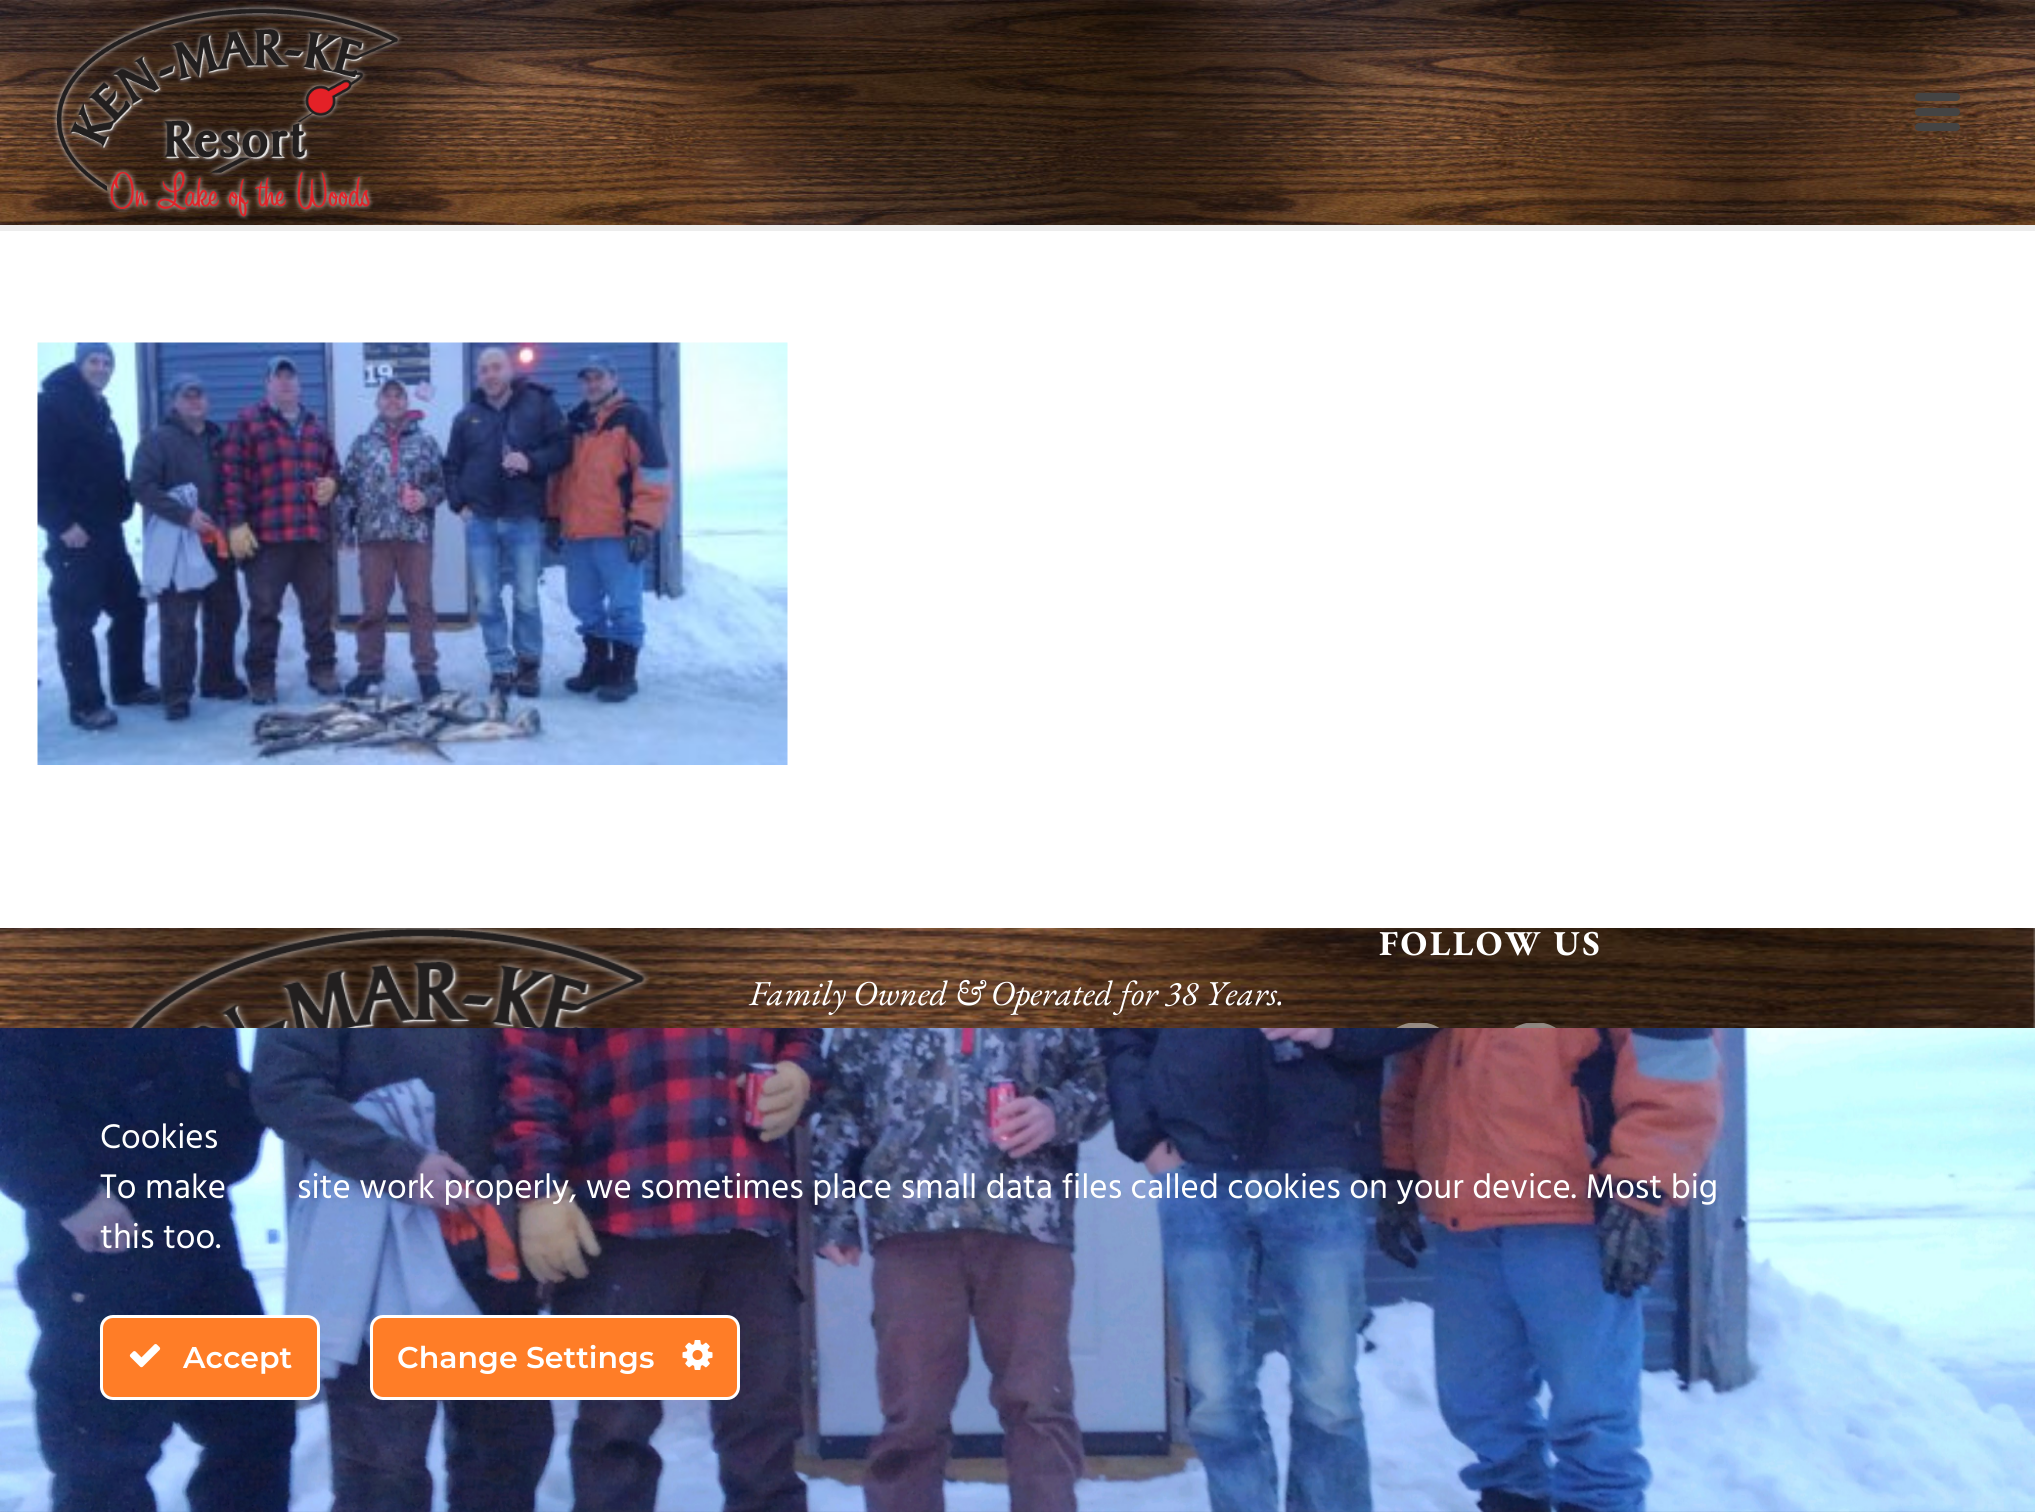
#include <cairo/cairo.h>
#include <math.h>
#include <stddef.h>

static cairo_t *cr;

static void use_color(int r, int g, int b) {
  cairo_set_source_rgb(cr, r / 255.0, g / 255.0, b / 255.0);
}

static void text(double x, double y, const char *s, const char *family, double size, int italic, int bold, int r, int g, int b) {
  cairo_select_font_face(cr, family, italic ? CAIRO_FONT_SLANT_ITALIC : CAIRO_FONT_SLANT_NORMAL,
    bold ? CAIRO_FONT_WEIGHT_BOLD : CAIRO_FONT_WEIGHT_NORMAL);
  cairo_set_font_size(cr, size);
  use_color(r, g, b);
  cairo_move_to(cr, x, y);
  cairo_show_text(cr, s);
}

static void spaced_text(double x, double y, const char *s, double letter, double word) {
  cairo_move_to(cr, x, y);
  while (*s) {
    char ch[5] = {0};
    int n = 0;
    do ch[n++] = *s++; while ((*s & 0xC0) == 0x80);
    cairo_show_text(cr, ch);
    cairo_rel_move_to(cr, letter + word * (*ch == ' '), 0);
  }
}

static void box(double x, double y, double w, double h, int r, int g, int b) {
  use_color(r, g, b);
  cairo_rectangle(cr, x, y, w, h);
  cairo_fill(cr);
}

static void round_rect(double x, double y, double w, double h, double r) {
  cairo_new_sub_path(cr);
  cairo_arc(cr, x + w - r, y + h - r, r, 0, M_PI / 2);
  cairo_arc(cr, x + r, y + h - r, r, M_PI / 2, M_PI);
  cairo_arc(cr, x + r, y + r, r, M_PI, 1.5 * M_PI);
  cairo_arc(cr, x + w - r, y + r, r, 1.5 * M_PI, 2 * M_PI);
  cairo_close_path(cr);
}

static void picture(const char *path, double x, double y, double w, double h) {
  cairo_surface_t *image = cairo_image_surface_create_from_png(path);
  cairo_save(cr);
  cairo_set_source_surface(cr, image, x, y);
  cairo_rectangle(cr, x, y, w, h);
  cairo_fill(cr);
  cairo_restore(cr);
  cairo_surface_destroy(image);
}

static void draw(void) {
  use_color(255, 255, 255);
  cairo_paint(cr);
  box(0, 225, 2035, 6, 237, 237, 237);
  picture("img_01.png", 0, 0, 2035, 225);
  picture("img_02.png", 52, 4, 350, 216);
  use_color(68, 68, 68);
  round_rect(1915, 93, 45, 8, 4);
  cairo_fill(cr);
  round_rect(1915, 108, 45, 8, 4);
  cairo_fill(cr);
  round_rect(1915, 123, 45, 8, 4);
  cairo_fill(cr);
  picture("img_03.png", 37, 342, 751, 423);
  picture("img_04.png", 0, 928, 2035, 584);
  picture("img_05.png", 123, 928, 527, 100);
  cairo_save(cr);
  cairo_rectangle(cr, 1378, 1023, 80, 80);
  cairo_clip(cr);
  cairo_set_source_rgba(cr, 0.922, 0.922, 0.922, 0.5);
  cairo_new_path(cr);
  cairo_move_to(cr, 1418, 1022);
  cairo_curve_to(cr, 1395, 1022, 1378, 1039, 1378, 1062);
  cairo_curve_to(cr, 1378, 1084, 1395, 1102, 1418, 1102);
  cairo_curve_to(cr, 1440, 1102, 1458, 1084, 1458, 1062);
  cairo_curve_to(cr, 1458, 1039, 1440, 1022, 1418, 1022);
  cairo_close_path(cr);
  cairo_move_to(cr, 1428, 1046);
  cairo_curve_to(cr, 1421, 1046, 1418, 1044, 1418, 1051);
  cairo_line_to(cr, 1427, 1051);
  cairo_line_to(cr, 1426, 1062);
  cairo_line_to(cr, 1417, 1062);
  cairo_line_to(cr, 1417, 1086);
  cairo_line_to(cr, 1407, 1086);
  cairo_line_to(cr, 1407, 1062);
  cairo_line_to(cr, 1402, 1062);
  cairo_line_to(cr, 1402, 1051);
  cairo_line_to(cr, 1407, 1051);
  cairo_line_to(cr, 1408, 1044);
  cairo_curve_to(cr, 1409, 1035, 1420, 1037, 1428, 1037);
  cairo_close_path(cr);
  cairo_fill(cr);
  cairo_restore(cr);
  cairo_save(cr);
  cairo_rectangle(cr, 1495, 1023, 80, 80);
  cairo_clip(cr);
  cairo_set_source_rgba(cr, 0.922, 0.922, 0.922, 0.5);
  cairo_new_path(cr);
  cairo_move_to(cr, 1520, 1044);
  cairo_line_to(cr, 1547, 1080);
  cairo_line_to(cr, 1551, 1080);
  cairo_line_to(cr, 1524, 1044);
  cairo_close_path(cr);
  cairo_move_to(cr, 1535, 1022);
  cairo_curve_to(cr, 1513, 1022, 1495, 1040, 1495, 1062);
  cairo_curve_to(cr, 1495, 1084, 1513, 1102, 1535, 1102);
  cairo_curve_to(cr, 1557, 1102, 1575, 1084, 1575, 1062);
  cairo_curve_to(cr, 1575, 1040, 1557, 1022, 1535, 1022);
  cairo_close_path(cr);
  cairo_move_to(cr, 1544, 1084);
  cairo_line_to(cr, 1532, 1069);
  cairo_line_to(cr, 1519, 1084);
  cairo_line_to(cr, 1512, 1084);
  cairo_line_to(cr, 1529, 1064);
  cairo_line_to(cr, 1510, 1040);
  cairo_line_to(cr, 1526, 1040);
  cairo_line_to(cr, 1536, 1054);
  cairo_line_to(cr, 1549, 1040);
  cairo_line_to(cr, 1556, 1040);
  cairo_line_to(cr, 1540, 1059);
  cairo_line_to(cr, 1560, 1084);
  cairo_close_path(cr);
  cairo_fill(cr);
  cairo_restore(cr);
  picture("img_06.png", 0, 1028, 2035, 484);
  use_color(255, 125, 39);
  round_rect(101.5, 1316.5, 217, 82, 11.5);
  cairo_fill_preserve(cr);
  use_color(255, 255, 255);
  cairo_set_line_width(cr, 3);
  cairo_stroke(cr);
  picture("img_07.png", 129, 1344, 32, 24);
  use_color(255, 125, 39);
  round_rect(371.5, 1316.5, 367, 82, 11.5);
  cairo_fill_preserve(cr);
  use_color(255, 255, 255);
  cairo_stroke(cr);
  picture("img_08.png", 682, 1340, 31, 30);
  cairo_select_font_face(cr, "EB Garamond", CAIRO_FONT_SLANT_NORMAL, CAIRO_FONT_WEIGHT_BOLD);
  cairo_set_font_size(cr, 35);
  spaced_text(1379, 955, "FOLLOW US", 2.5, 0);
  text(749, 1005, "Family Owned & Operated for 38 Years.", "EB Garamond", 35, 1, 0, 255, 255, 255);
  text(100, 1148, "Cookies", "Hind", 35, 0, 0, 255, 255, 255);
  text(100, 1198, "To make", "Hind", 35, 0, 0, 255, 255, 255);
  text(297, 1198, "site work properly, we sometimes place small data files called cookies on your device. Most big", "Hind", 35, 0, 0, 255, 255, 255);
  text(100, 1248, "this too.", "Hind", 35, 0, 0, 255, 255, 255);
  text(183, 1368, "Accept", "Montserrat SemiBold", 30, 0, 0, 255, 255, 255);
  text(397, 1368, "Change Settings", "Montserrat SemiBold", 30, 0, 0, 255, 255, 255);
}

int main(void) {
  cairo_surface_t *surface = cairo_image_surface_create(CAIRO_FORMAT_RGB24, 2035, 1512);
  cr = cairo_create(surface);
  cairo_font_options_t *options = cairo_font_options_create();
  cairo_font_options_set_hint_metrics(options, CAIRO_HINT_METRICS_OFF);
  cairo_font_options_set_hint_style(options, CAIRO_HINT_STYLE_NONE);
  cairo_set_font_options(cr, options);
  cairo_set_miter_limit(cr, 4);
  draw();
  cairo_surface_write_to_png(surface, "out.png");
  cairo_font_options_destroy(options);
  cairo_destroy(cr);
  cairo_surface_destroy(surface);
  return 0;
}
